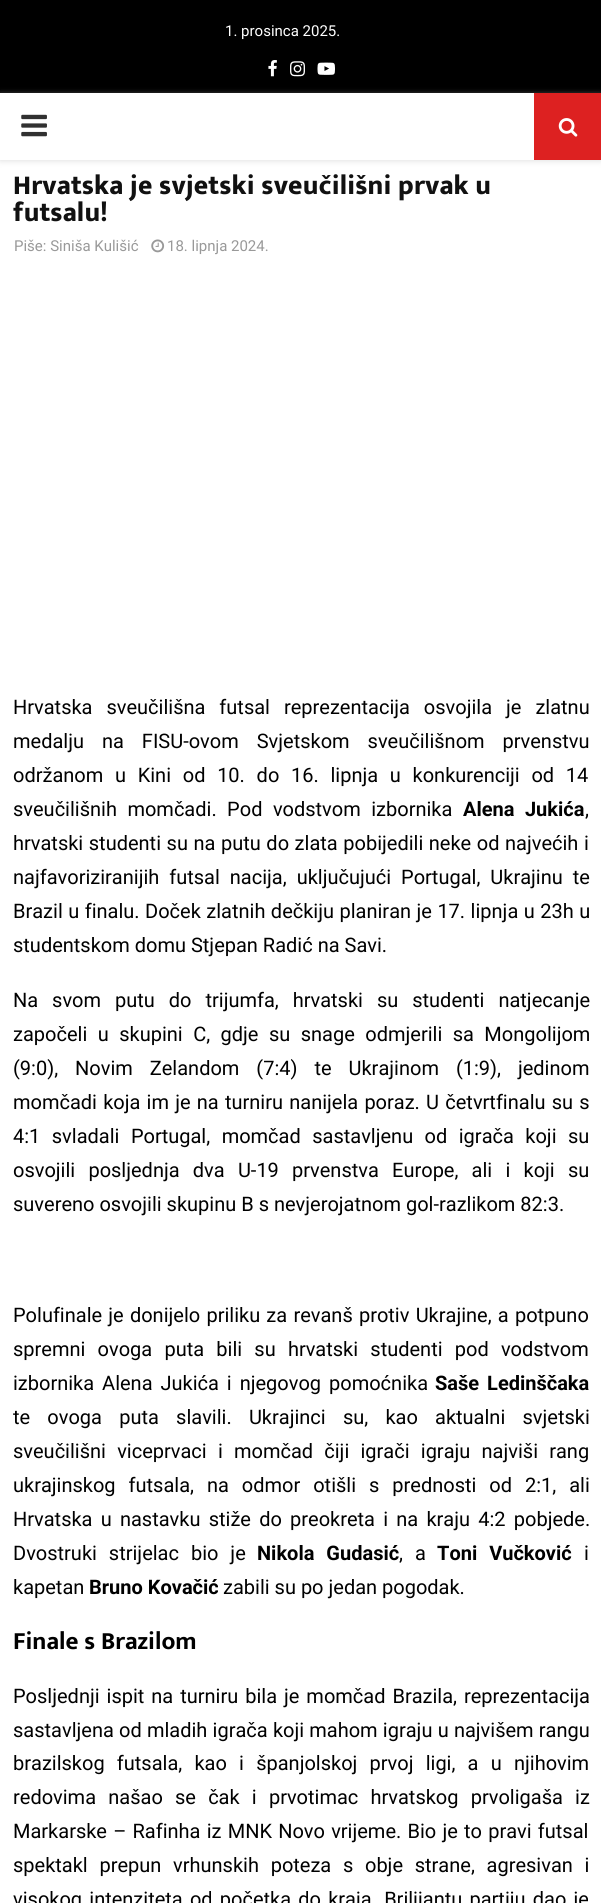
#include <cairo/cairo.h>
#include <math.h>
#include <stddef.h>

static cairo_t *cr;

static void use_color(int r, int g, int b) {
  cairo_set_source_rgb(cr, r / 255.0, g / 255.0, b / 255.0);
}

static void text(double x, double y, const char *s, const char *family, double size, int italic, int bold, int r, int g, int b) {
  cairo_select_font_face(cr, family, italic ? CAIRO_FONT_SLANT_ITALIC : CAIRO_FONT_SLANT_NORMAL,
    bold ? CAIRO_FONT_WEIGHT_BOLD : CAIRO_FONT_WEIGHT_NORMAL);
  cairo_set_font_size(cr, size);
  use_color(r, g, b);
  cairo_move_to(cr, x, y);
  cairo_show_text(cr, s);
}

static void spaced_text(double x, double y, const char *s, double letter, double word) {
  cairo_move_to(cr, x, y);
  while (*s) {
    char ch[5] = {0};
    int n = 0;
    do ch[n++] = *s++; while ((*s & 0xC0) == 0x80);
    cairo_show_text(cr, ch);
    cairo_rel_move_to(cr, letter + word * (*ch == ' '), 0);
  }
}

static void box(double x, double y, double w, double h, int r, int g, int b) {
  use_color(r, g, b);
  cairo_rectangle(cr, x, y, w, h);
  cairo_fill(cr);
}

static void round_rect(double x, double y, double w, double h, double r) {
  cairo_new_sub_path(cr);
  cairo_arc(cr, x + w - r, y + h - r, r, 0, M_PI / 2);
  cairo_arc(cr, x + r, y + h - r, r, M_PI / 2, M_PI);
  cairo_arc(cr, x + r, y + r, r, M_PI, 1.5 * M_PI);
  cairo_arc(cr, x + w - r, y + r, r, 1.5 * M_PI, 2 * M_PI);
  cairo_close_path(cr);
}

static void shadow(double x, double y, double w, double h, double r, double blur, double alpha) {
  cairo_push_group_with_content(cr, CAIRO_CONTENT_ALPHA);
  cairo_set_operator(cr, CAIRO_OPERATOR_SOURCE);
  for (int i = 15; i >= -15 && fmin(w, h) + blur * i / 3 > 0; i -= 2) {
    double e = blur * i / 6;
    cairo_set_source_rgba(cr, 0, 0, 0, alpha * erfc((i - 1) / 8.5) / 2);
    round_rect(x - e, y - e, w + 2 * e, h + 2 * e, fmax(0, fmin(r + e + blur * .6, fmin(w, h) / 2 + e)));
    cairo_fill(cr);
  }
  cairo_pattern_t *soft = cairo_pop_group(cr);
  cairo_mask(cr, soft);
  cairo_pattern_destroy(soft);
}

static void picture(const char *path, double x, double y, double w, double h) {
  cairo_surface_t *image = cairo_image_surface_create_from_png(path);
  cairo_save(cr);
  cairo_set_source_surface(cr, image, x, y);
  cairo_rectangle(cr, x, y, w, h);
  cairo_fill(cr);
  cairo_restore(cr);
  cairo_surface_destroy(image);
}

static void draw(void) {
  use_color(255, 255, 255);
  cairo_paint(cr);
  box(0, 0, 601, 93, 0, 0, 0);
  picture("img_01.png", 268, 60, 9, 17);
  picture("img_02.png", 290, 61, 15, 16);
  picture("img_03.png", 317, 62, 18, 13);
  cairo_save(cr);
  cairo_set_fill_rule(cr, CAIRO_FILL_RULE_EVEN_ODD);
  cairo_new_path(cr);
  cairo_move_to(cr, 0, 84);
  cairo_line_to(cr, 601, 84);
  cairo_line_to(cr, 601, 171);
  cairo_line_to(cr, 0, 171);
  cairo_close_path(cr);
  cairo_move_to(cr, 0, 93);
  cairo_line_to(cr, 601, 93);
  cairo_line_to(cr, 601, 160);
  cairo_line_to(cr, 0, 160);
  cairo_close_path(cr);
  cairo_clip(cr);
  use_color(190, 190, 190);
  shadow(0, 94, 601, 67, 0, 3, 0.46);
  cairo_restore(cr);
  picture("img_04.png", 21, 114, 26, 23);
  box(534, 93, 67, 67, 221, 33, 33);
  picture("img_05.png", 558, 118, 20, 19);
  picture("img_06.png", 151, 239, 14, 14);
  text(225, 36, "1. prosinca 2025.", "Roboto", 15, 0, 0, 255, 255, 255);
  cairo_select_font_face(cr, "Mukta Vaani ExtraBold", CAIRO_FONT_SLANT_NORMAL, CAIRO_FONT_WEIGHT_NORMAL);
  cairo_set_font_size(cr, 27.5);
  use_color(17, 17, 17);
  spaced_text(13, 194, "Hrvatska je svjetski sveučilišni prvak u", 0.15, 0);
  spaced_text(13, 221, "futsalu!", 0.15, 0);
  text(14, 251, "Piše: Siniša Kulišić", "Roboto", 15, 0, 0, 153, 153, 153);
  text(167, 251, "18. lipnja 2024.", "Roboto", 15, 0, 0, 153, 153, 153);
  cairo_set_font_size(cr, 20);
  use_color(0, 0, 0);
  spaced_text(13, 714, "Hrvatska sveučilišna futsal reprezentacija osvojila je zlatnu", 0, 9);
  spaced_text(13, 748, "medalju na FISU-ovom Svjetskom sveučilišnom prvenstvu", 0, 13);
  spaced_text(13, 782, "održanom u Kini od 10. do 16. lipnja u konkurenciji od 14", 0, 6.75);
  spaced_text(13, 816, "sveučilišnih momčadi. Pod vodstvom izbornika", 0, 5.5);
  cairo_select_font_face(cr, "Roboto", CAIRO_FONT_SLANT_NORMAL, CAIRO_FONT_WEIGHT_BOLD);
  spaced_text(463, 816, "Alena Jukića", 0, 5.5);
  text(585, 816, ",", "Roboto", 20, 0, 0, 0, 0, 0);
  spaced_text(13, 850, "hrvatski studenti su na putu do zlata pobijedili neke od najvećih i", 0, 0.6);
  spaced_text(13, 884, "najfavoriziranijih futsal nacija, uključujući Portugal, Ukrajinu te", 0, 5);
  spaced_text(13, 918, "Brazil u finalu. Doček zlatnih dečkiju planiran je 17. lipnja u 23h u", 0, 0.5);
  text(13, 952, "studentskom domu Stjepan Radić na Savi.", "Roboto", 20, 0, 0, 0, 0, 0);
  spaced_text(13, 1007, "Na svom putu do trijumfa, hrvatski su studenti natjecanje", 0, 9);
  spaced_text(13, 1041, "započeli u skupini C, gdje su snage odmjerili sa Mongolijom", 0, 5.5);
  spaced_text(13, 1075, "(9:0), Novim Zelandom (7:4) te Ukrajinom (1:9), jedinom", 0, 12);
  spaced_text(13, 1109, "momčadi koja im je na turniru nanijela poraz. U četvrtfinalu su s", 0, 1.25);
  spaced_text(13, 1143, "4:1 svladali Portugal, momčad sastavljenu od igrača koji su", 0, 6.5);
  spaced_text(13, 1177, "osvojili posljednja dva U-19 prvenstva Europe, ali i koji su", 0, 8.25);
  text(13, 1211, "suvereno osvojili skupinu B s nevjerojatnom gol-razlikom 82:3.", "Roboto", 20, 0, 0, 0, 0, 0);
  spaced_text(13, 1322, "Polufinale je donijelo priliku za revanš protiv Ukrajine, a potpuno", 0, 1.25);
  spaced_text(13, 1356, "spremni ovoga puta bili su hrvatski studenti pod vodstvom", 0, 7.25);
  spaced_text(13, 1390, "izbornika Alena Jukića i njegovog pomoćnika", 0, 3);
  cairo_select_font_face(cr, "Roboto", CAIRO_FONT_SLANT_NORMAL, CAIRO_FONT_WEIGHT_BOLD);
  spaced_text(435, 1390, "Saše Ledinščaka", 0, 3);
  cairo_select_font_face(cr, "Roboto", CAIRO_FONT_SLANT_NORMAL, CAIRO_FONT_WEIGHT_NORMAL);
  spaced_text(13, 1424, "te ovoga puta slavili. Ukrajinci su, kao aktualni svjetski", 0, 12.25);
  spaced_text(13, 1458, "sveučilišni viceprvaci i momčad čiji igrači igraju najviši rang", 0, 6.25);
  spaced_text(13, 1492, "ukrajinskog futsala, na odmor otišli s prednosti od 2:1, ali", 0, 8);
  spaced_text(13, 1526, "Hrvatska u nastavku stiže do preokreta i na kraju 4:2 pobjede.", 0, 3.25);
  spaced_text(13, 1560, "Dvostruki strijelac bio je", 0, 7);
  cairo_select_font_face(cr, "Roboto", CAIRO_FONT_SLANT_NORMAL, CAIRO_FONT_WEIGHT_BOLD);
  spaced_text(257, 1560, "Nikola Gudasić", 0, 7);
  cairo_select_font_face(cr, "Roboto", CAIRO_FONT_SLANT_NORMAL, CAIRO_FONT_WEIGHT_NORMAL);
  spaced_text(399, 1560, ", a", 0, 7);
  cairo_select_font_face(cr, "Roboto", CAIRO_FONT_SLANT_NORMAL, CAIRO_FONT_WEIGHT_BOLD);
  spaced_text(437, 1560, "Toni Vučković", 0, 7);
  text(584, 1560, "i", "Roboto", 20, 0, 0, 0, 0, 0);
  text(13, 1594, "kapetan", "Roboto", 20, 0, 0, 0, 0, 0);
  text(89, 1594, "Bruno Kovačić", "Roboto", 20, 0, 1, 0, 0, 0);
  text(223, 1594, "zabili su po jedan pogodak.", "Roboto", 20, 0, 0, 0, 0, 0);
  text(13, 1649, "Finale s Brazilom", "Mukta Vaani", 25, 0, 1, 0, 0, 0);
  cairo_select_font_face(cr, "Roboto", CAIRO_FONT_SLANT_NORMAL, CAIRO_FONT_WEIGHT_NORMAL);
  cairo_set_font_size(cr, 20);
  spaced_text(13, 1703, "Posljednji ispit na turniru bila je momčad Brazila, reprezentacija", 0, 2);
  spaced_text(13, 1737, "sastavljena od mladih igrača koji mahom igraju u najvišem rangu", 0, 0.25);
  spaced_text(13, 1770, "brazilskog futsala, kao i španjolskoj prvoj ligi, a u njihovim", 0, 7.25);
  spaced_text(13, 1804, "redovima našao se čak i prvotimac hrvatskog prvoligaša iz", 0, 7.25);
  spaced_text(13, 1838, "Markarske – Rafinha iz MNK Novo vrijeme. Bio je to pravi futsal", 0, 1.25);
  spaced_text(13, 1872, "spektakl prepun vrhunskih poteza s obje strane, agresivan i", 0, 6.75);
  spaced_text(13, 1906, "visokog intenziteta od početka do kraja. Brilijantu partiju dao je", 0, 2.25);
}

int main(void) {
  cairo_surface_t *surface = cairo_image_surface_create(CAIRO_FORMAT_RGB24, 601, 1903);
  cr = cairo_create(surface);
  cairo_font_options_t *options = cairo_font_options_create();
  cairo_font_options_set_hint_metrics(options, CAIRO_HINT_METRICS_OFF);
  cairo_font_options_set_hint_style(options, CAIRO_HINT_STYLE_NONE);
  cairo_set_font_options(cr, options);
  cairo_set_miter_limit(cr, 4);
  draw();
  cairo_surface_write_to_png(surface, "out.png");
  cairo_font_options_destroy(options);
  cairo_destroy(cr);
  cairo_surface_destroy(surface);
  return 0;
}
